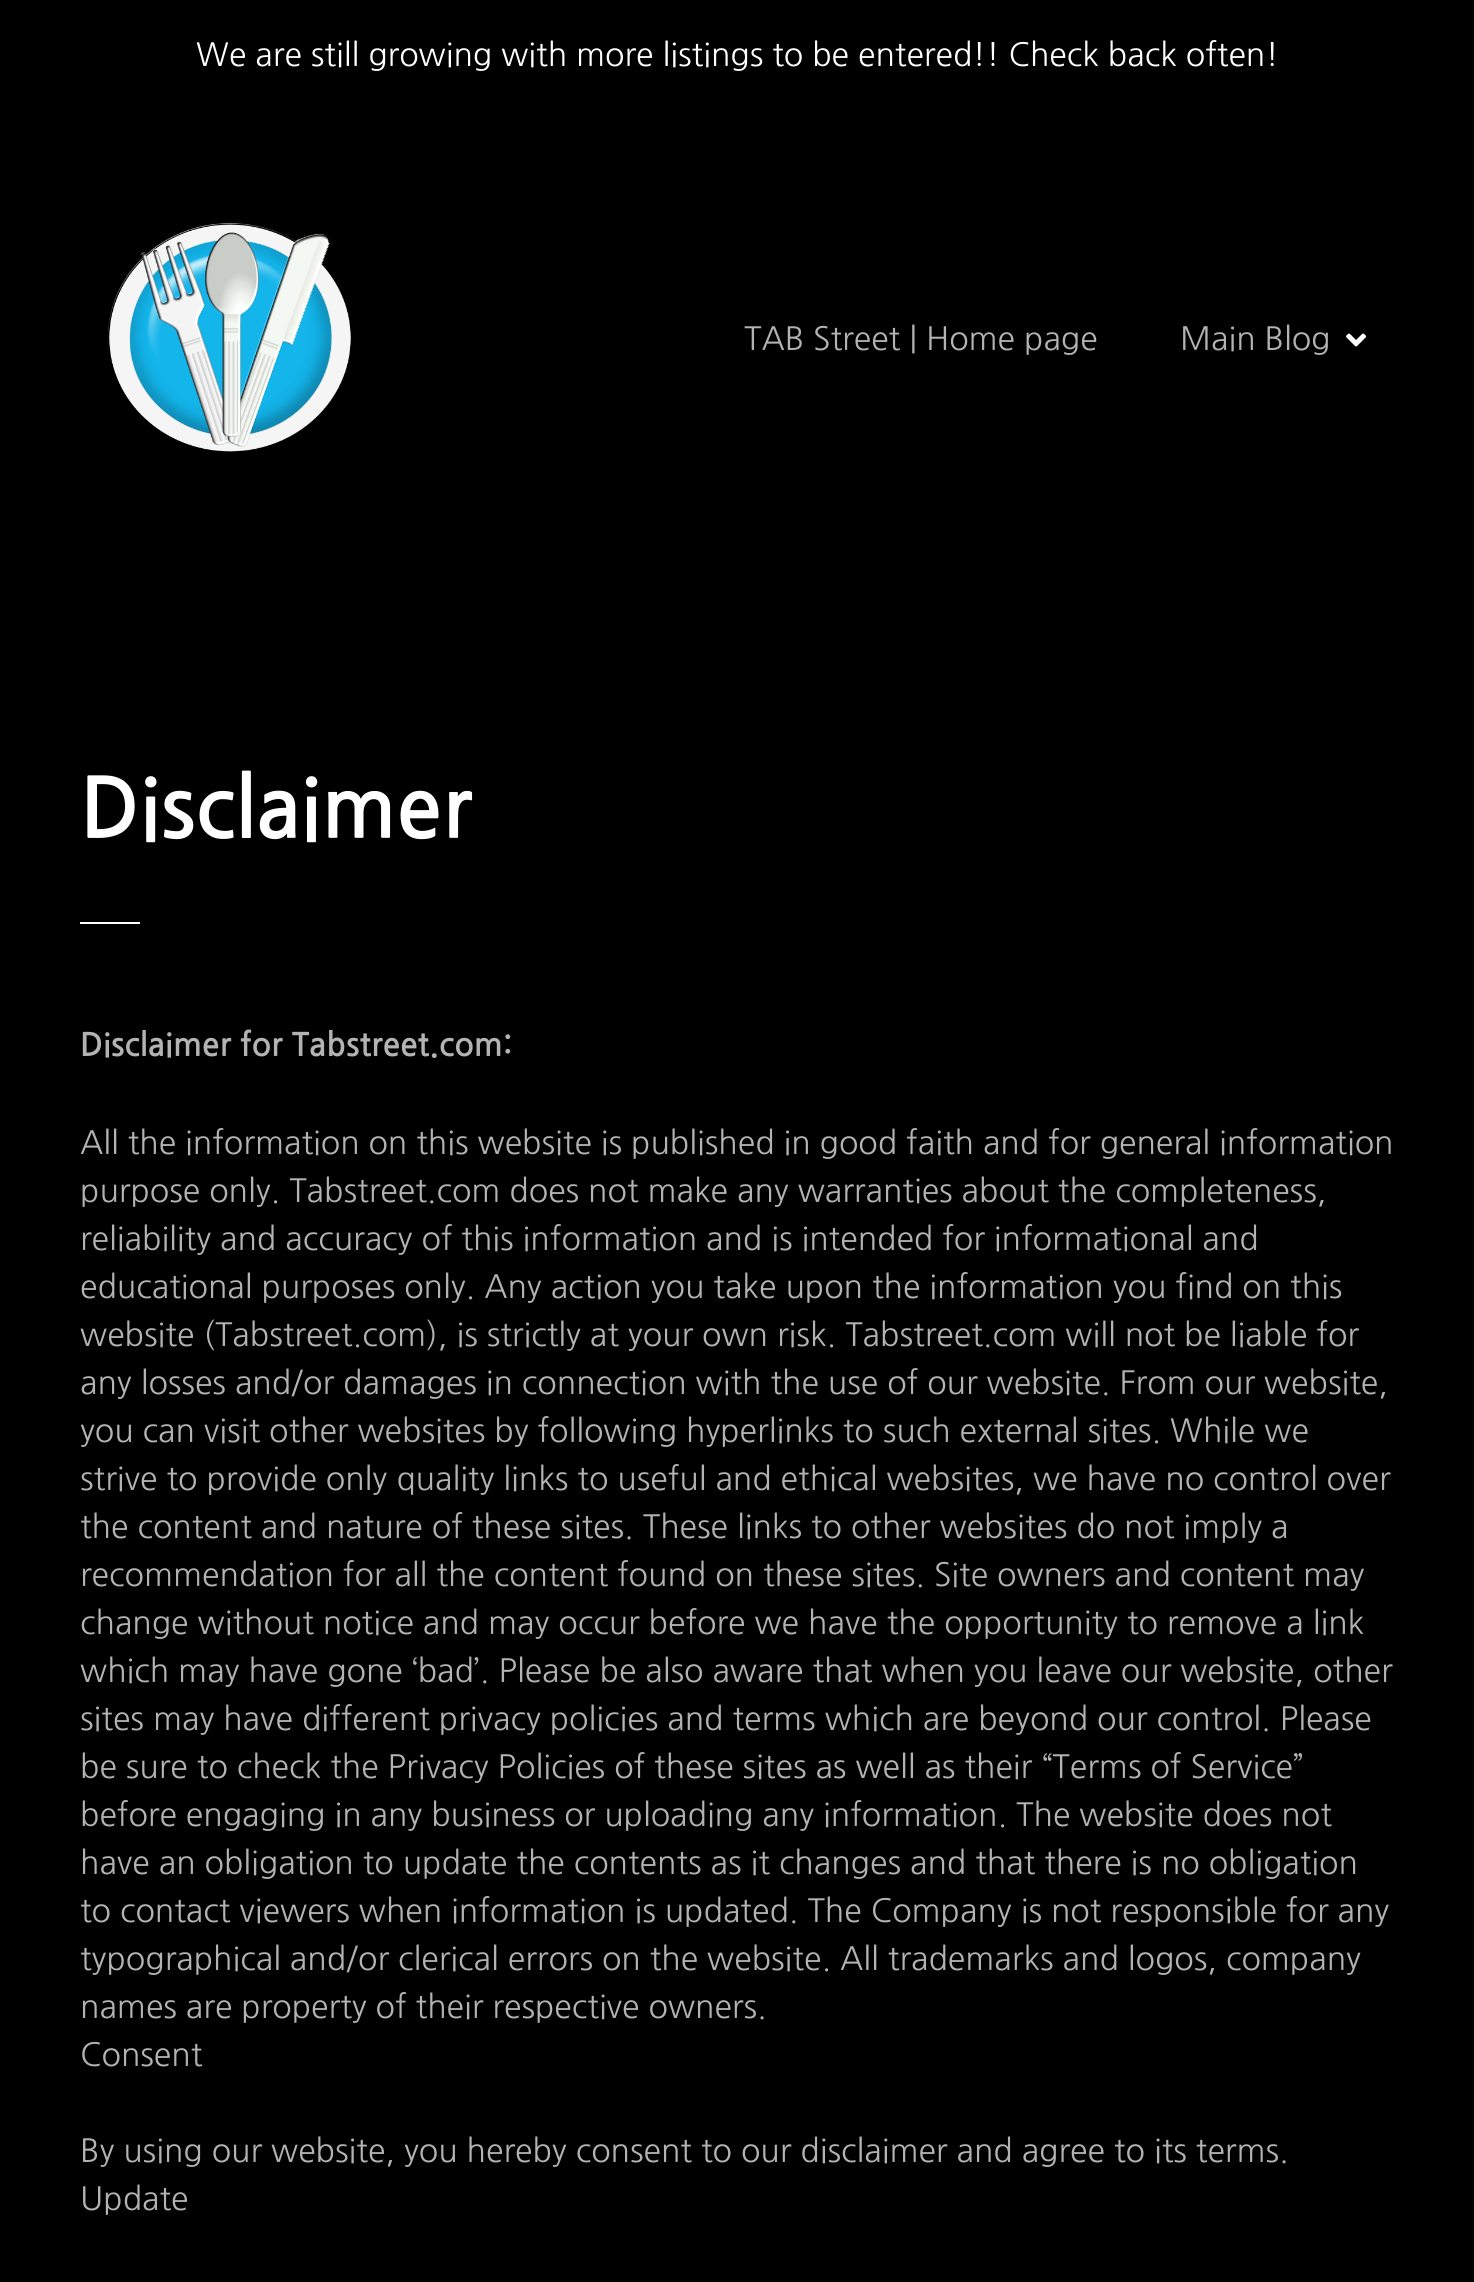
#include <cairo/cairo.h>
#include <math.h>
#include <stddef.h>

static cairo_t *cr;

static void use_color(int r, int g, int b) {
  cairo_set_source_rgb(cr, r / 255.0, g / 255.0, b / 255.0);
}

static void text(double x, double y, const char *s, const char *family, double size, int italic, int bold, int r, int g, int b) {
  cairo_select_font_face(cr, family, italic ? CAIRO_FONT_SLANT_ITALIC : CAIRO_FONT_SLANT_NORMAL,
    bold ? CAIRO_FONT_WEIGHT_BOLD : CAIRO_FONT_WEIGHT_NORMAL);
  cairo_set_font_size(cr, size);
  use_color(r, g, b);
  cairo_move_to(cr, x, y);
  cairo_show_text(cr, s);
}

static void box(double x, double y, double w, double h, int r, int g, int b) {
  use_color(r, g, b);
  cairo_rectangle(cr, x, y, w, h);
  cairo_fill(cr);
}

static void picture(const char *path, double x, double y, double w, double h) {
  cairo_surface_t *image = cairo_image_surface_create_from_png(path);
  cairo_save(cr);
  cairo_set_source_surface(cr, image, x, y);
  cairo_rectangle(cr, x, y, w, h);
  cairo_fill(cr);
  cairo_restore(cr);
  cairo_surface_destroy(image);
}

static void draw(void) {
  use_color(0, 0, 0);
  cairo_paint(cr);
  picture("img_01.png", 107, 222, 244, 230);
  picture("img_02.png", 1346, 333, 20, 14);
  box(80, 922, 60, 2, 255, 255, 255);
  text(196, 66, "We are still growing with more listings to be entered!! Check back often!", "NanumGothic", 32, 0, 0, 255, 255, 255);
  text(744, 350, "TAB Street | Home page", "NanumGothic", 32, 0, 0, 179, 179, 179);
  text(1180, 350, "Main Blog", "NanumGothic", 32, 0, 0, 179, 179, 179);
  text(80, 838, "Disclaimer", "NanumGothic", 83, 0, 1, 255, 255, 255);
  text(80, 1056, "Disclaimer for Tabstreet.com:", "NanumGothic", 32, 0, 1, 179, 179, 179);
  text(80, 1154, "All the information on this website is published in good faith and for general information", "NanumGothic", 32, 0, 0, 179, 179, 179);
  text(80, 1202, "purpose only. Tabstreet.com does not make any warranties about the completeness,", "NanumGothic", 32, 0, 0, 179, 179, 179);
  text(80, 1250, "reliability and accuracy of this information and is intended for informational and", "NanumGothic", 32, 0, 0, 179, 179, 179);
  text(80, 1298, "educational purposes only. Any action you take upon the information you find on this", "NanumGothic", 32, 0, 0, 179, 179, 179);
  text(80, 1346, "website (Tabstreet.com), is strictly at your own risk. Tabstreet.com will not be liable for", "NanumGothic", 32, 0, 0, 179, 179, 179);
  text(80, 1394, "any losses and/or damages in connection with the use of our website. From our website,", "NanumGothic", 32, 0, 0, 179, 179, 179);
  text(80, 1442, "you can visit other websites by following hyperlinks to such external sites. While we", "NanumGothic", 32, 0, 0, 179, 179, 179);
  text(80, 1490, "strive to provide only quality links to useful and ethical websites, we have no control over", "NanumGothic", 32, 0, 0, 179, 179, 179);
  text(80, 1538, "the content and nature of these sites. These links to other websites do not imply a", "NanumGothic", 32, 0, 0, 179, 179, 179);
  text(80, 1586, "recommendation for all the content found on these sites. Site owners and content may", "NanumGothic", 32, 0, 0, 179, 179, 179);
  text(80, 1634, "change without notice and may occur before we have the opportunity to remove a link", "NanumGothic", 32, 0, 0, 179, 179, 179);
  text(80, 1682, "which may have gone ‘bad’. Please be also aware that when you leave our website, other", "NanumGothic", 32, 0, 0, 179, 179, 179);
  text(80, 1730, "sites may have different privacy policies and terms which are beyond our control. Please", "NanumGothic", 32, 0, 0, 179, 179, 179);
  text(80, 1778, "be sure to check the Privacy Policies of these sites as well as their “Terms of Service”", "NanumGothic", 32, 0, 0, 179, 179, 179);
  text(80, 1826, "before engaging in any business or uploading any information. The website does not", "NanumGothic", 32, 0, 0, 179, 179, 179);
  text(80, 1874, "have an obligation to update the contents as it changes and that there is no obligation", "NanumGothic", 32, 0, 0, 179, 179, 179);
  text(80, 1922, "to contact viewers when information is updated. The Company is not responsible for any", "NanumGothic", 32, 0, 0, 179, 179, 179);
  text(80, 1970, "typographical and/or clerical errors on the website. All trademarks and logos, company", "NanumGothic", 32, 0, 0, 179, 179, 179);
  text(80, 2018, "names are property of their respective owners.", "NanumGothic", 32, 0, 0, 179, 179, 179);
  text(80, 2066, "Consent", "NanumGothic", 32, 0, 0, 179, 179, 179);
  text(80, 2162, "By using our website, you hereby consent to our disclaimer and agree to its terms.", "NanumGothic", 32, 0, 0, 179, 179, 179);
  text(80, 2210, "Update", "NanumGothic", 32, 0, 0, 179, 179, 179);
}

int main(void) {
  cairo_surface_t *surface = cairo_image_surface_create(CAIRO_FORMAT_RGB24, 1474, 2282);
  cr = cairo_create(surface);
  cairo_font_options_t *options = cairo_font_options_create();
  cairo_font_options_set_hint_metrics(options, CAIRO_HINT_METRICS_OFF);
  cairo_font_options_set_hint_style(options, CAIRO_HINT_STYLE_NONE);
  cairo_set_font_options(cr, options);
  cairo_set_miter_limit(cr, 4);
  draw();
  cairo_surface_write_to_png(surface, "out.png");
  cairo_font_options_destroy(options);
  cairo_destroy(cr);
  cairo_surface_destroy(surface);
  return 0;
}
